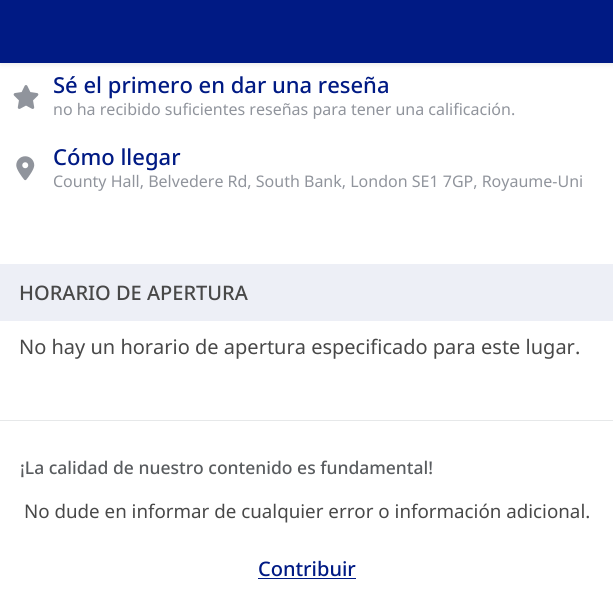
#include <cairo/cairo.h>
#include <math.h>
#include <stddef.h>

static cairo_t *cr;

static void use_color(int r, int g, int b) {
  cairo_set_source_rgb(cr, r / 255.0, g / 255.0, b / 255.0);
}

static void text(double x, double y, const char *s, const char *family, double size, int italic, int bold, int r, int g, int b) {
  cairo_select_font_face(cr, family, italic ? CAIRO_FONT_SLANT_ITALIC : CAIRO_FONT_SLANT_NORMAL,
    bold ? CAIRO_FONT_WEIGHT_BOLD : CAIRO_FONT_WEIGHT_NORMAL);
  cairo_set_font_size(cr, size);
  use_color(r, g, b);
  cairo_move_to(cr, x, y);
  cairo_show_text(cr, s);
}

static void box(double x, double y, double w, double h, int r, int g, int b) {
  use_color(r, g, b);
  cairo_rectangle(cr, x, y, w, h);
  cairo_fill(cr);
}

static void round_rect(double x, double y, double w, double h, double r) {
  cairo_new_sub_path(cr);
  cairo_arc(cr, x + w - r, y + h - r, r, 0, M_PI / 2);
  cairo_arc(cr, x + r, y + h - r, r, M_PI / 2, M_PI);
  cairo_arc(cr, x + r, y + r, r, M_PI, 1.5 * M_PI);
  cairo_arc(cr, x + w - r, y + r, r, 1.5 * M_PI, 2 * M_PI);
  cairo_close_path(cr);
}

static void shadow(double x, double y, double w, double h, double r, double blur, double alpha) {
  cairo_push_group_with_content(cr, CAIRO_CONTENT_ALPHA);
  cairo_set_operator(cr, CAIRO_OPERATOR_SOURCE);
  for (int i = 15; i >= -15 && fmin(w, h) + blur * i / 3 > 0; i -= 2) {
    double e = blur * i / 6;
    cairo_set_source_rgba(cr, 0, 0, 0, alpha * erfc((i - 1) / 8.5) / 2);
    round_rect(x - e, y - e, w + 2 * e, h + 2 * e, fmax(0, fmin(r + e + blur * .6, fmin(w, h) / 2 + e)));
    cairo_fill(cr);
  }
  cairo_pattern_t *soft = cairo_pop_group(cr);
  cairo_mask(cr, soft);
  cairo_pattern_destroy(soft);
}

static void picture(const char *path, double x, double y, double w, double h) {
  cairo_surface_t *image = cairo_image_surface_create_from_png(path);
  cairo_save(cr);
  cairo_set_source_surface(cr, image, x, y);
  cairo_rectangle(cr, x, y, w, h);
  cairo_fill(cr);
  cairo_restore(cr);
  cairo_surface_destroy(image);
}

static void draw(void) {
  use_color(255, 255, 255);
  cairo_paint(cr);
  use_color(0, 0, 0);
  shadow(0, 3, 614, 62, 0, 2.5, 0.07);
  box(0, 0, 613, 63, 0, 26, 132);
  picture("img_01.png", 13, 85, 26, 24);
  picture("img_02.png", 16, 156, 19, 25);
  box(0, 264, 613, 57, 237, 239, 246);
  box(0, 420, 613, 1, 230, 232, 233);
  box(258, 578, 98, 1, 0, 26, 132);
  text(53, 93, "Sé el primero en dar una reseña", "Noto Sans Medium", 22, 0, 0, 0, 26, 132);
  text(53, 115, "no ha recibido suficientes reseñas para tener una calificación.", "Noto Sans", 16, 0, 0, 144, 148, 156);
  text(53, 165, "Cómo llegar", "Noto Sans Medium", 22, 0, 0, 0, 26, 132);
  text(53, 187, "County Hall, Belvedere Rd, South Bank, London SE1 7GP, Royaume-Uni", "Noto Sans", 16, 0, 0, 144, 148, 156);
  text(19, 300, "HORARIO DE APERTURA", "Noto Sans Medium", 20, 0, 0, 72, 72, 72);
  text(19, 354, "No hay un horario de apertura especificado para este lugar.", "Noto Sans", 20, 0, 0, 72, 72, 72);
  text(20, 474, "¡La calidad de nuestro contenido es fundamental!", "Noto Sans Medium", 17.5, 0, 0, 89, 92, 95);
  text(24, 518, "No dude en informar de cualquier error o información adicional.", "Noto Sans", 18.75, 0, 0, 72, 72, 72);
  text(258, 576, "Contribuir", "Noto Sans Medium", 20, 0, 0, 0, 26, 132);
}

int main(void) {
  cairo_surface_t *surface = cairo_image_surface_create(CAIRO_FORMAT_RGB24, 613, 613);
  cr = cairo_create(surface);
  cairo_font_options_t *options = cairo_font_options_create();
  cairo_font_options_set_hint_metrics(options, CAIRO_HINT_METRICS_OFF);
  cairo_font_options_set_hint_style(options, CAIRO_HINT_STYLE_NONE);
  cairo_set_font_options(cr, options);
  cairo_set_miter_limit(cr, 4);
  draw();
  cairo_surface_write_to_png(surface, "out.png");
  cairo_font_options_destroy(options);
  cairo_destroy(cr);
  cairo_surface_destroy(surface);
  return 0;
}
